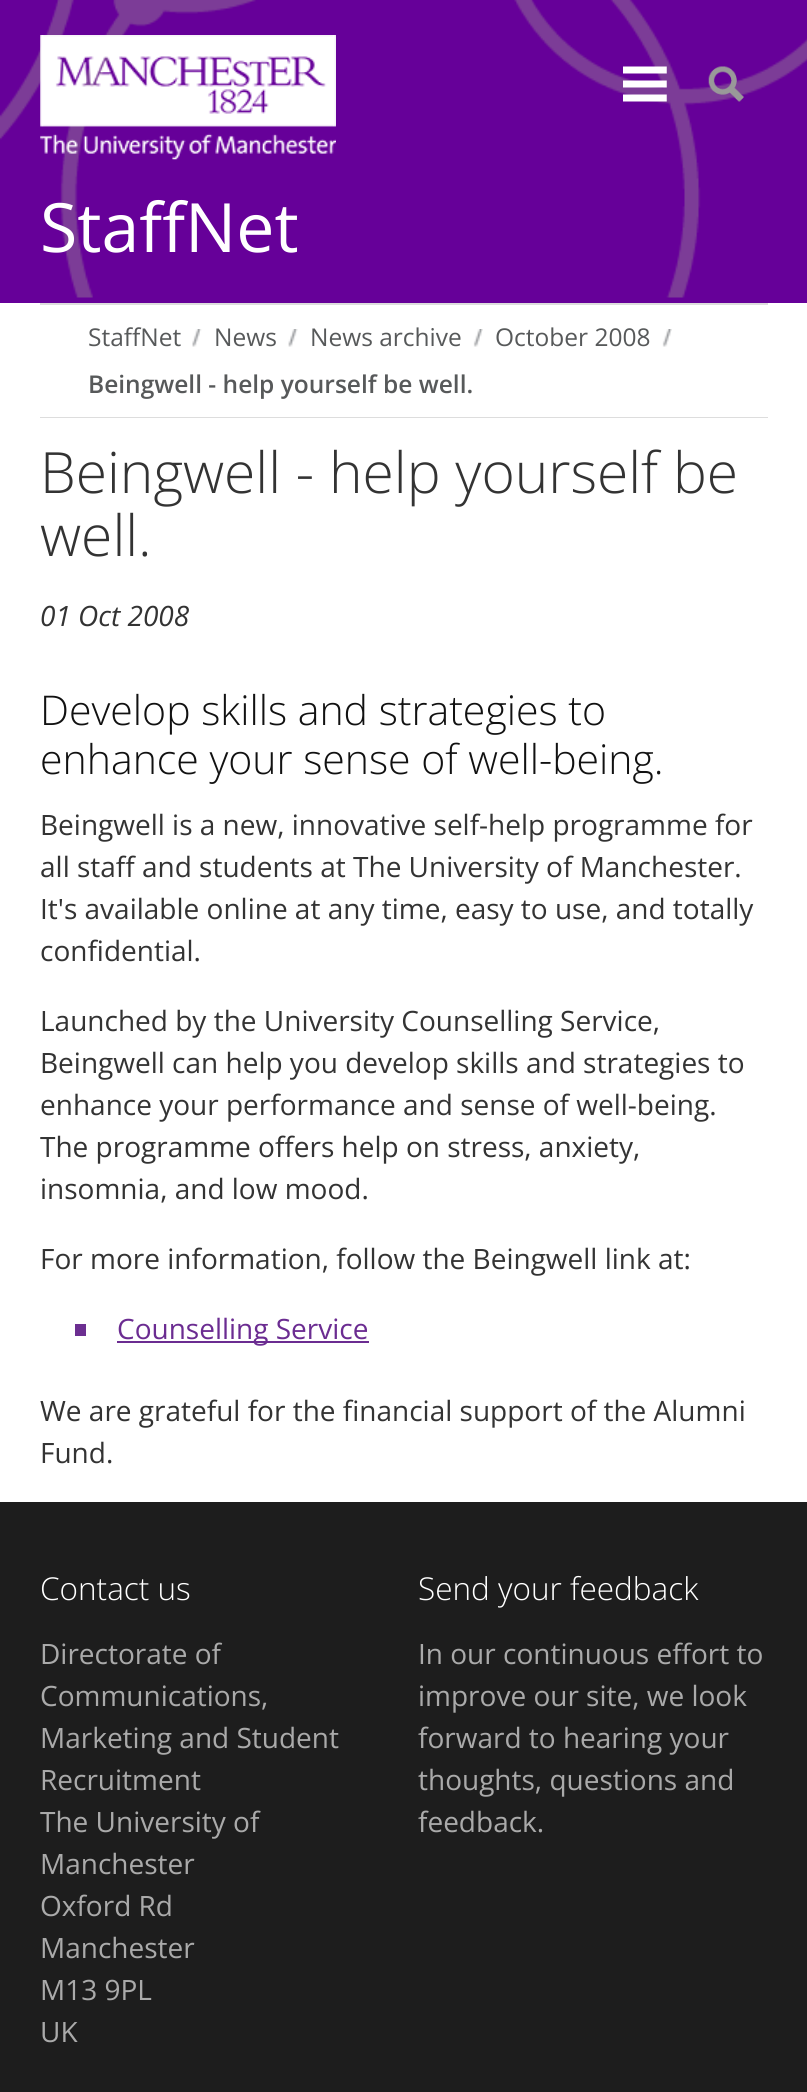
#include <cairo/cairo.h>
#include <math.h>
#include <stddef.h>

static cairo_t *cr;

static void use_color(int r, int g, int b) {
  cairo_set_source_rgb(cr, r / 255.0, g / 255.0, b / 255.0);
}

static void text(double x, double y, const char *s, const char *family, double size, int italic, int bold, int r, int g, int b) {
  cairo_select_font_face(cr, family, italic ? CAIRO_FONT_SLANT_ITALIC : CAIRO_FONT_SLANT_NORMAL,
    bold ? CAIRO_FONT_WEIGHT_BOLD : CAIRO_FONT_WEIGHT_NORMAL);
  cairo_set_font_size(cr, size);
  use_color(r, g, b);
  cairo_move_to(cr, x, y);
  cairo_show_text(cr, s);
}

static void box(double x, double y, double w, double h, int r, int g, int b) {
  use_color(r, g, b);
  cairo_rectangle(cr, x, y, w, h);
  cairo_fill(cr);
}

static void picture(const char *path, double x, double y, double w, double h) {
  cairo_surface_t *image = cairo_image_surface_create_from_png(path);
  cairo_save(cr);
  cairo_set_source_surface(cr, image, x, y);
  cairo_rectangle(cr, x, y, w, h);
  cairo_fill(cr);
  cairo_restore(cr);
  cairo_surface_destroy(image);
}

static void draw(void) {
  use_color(102, 0, 153);
  cairo_paint(cr);
  picture("img_01.png", 0, 38, 807, 103);
  box(40, 38, 728, 103, 102, 0, 153);
  picture("img_02.png", 40, 0, 729, 298);
  picture("img_03.png", 40, 35, 296, 125);
  picture("img_04.png", 623, 66, 44, 36);
  picture("img_05.png", 708, 66, 36, 36);
  box(0, 303, 807, 1199, 255, 255, 255);
  box(40, 303, 728, 2, 221, 221, 221);
  box(40, 417, 728, 1, 221, 221, 221);
  picture("img_06.png", 192, 329, 10, 18);
  picture("img_07.png", 288, 329, 10, 18);
  picture("img_08.png", 473, 329, 10, 18);
  picture("img_09.png", 662, 329, 10, 18);
  box(75, 1324, 11, 12, 108, 47, 145);
  box(117, 1341, 252, 2, 107, 44, 145);
  box(0, 1502, 807, 590, 29, 29, 29);
  text(40, 252, "StaffNet", "Open Sans", 68, 0, 0, 255, 255, 255);
  text(88, 346, "StaffNet", "Open Sans", 24.5, 0, 0, 87, 89, 90);
  text(214, 346, "News", "Open Sans", 24.5, 0, 0, 87, 89, 90);
  text(310, 346, "News archive", "Open Sans", 24.5, 0, 0, 87, 89, 90);
  text(495, 346, "October 2008", "Open Sans", 24.5, 0, 0, 87, 89, 90);
  text(88, 393, "Beingwell - help yourself be well.", "Open Sans SemiBold", 24.5, 0, 0, 87, 89, 90);
  text(40, 493, "Beingwell - help yourself be", "Open Sans Light", 56.9, 0, 0, 51, 51, 51);
  text(40, 556, "well.", "Open Sans Light", 56.9, 0, 0, 51, 51, 51);
  text(40, 626, "01 Oct 2008", "Open Sans", 28, 1, 0, 51, 51, 51);
  text(40, 725, "Develop skills and strategies to", "Open Sans Light", 41, 0, 0, 17, 17, 17);
  text(40, 774, "enhance your sense of well-being.", "Open Sans Light", 41, 0, 0, 17, 17, 17);
  text(40, 835, "Beingwell is a new, innovative self-help programme for", "Open Sans", 28, 0, 0, 51, 51, 51);
  text(40, 877, "all staff and students at The University of Manchester.", "Open Sans", 28, 0, 0, 51, 51, 51);
  text(40, 919, "It's available online at any time, easy to use, and totally", "Open Sans", 28, 0, 0, 51, 51, 51);
  text(40, 961, "confidential.", "Open Sans", 28, 0, 0, 51, 51, 51);
  text(40, 1031, "Launched by the University Counselling Service,", "Open Sans", 28, 0, 0, 51, 51, 51);
  text(40, 1073, "Beingwell can help you develop skills and strategies to", "Open Sans", 28, 0, 0, 51, 51, 51);
  text(40, 1115, "enhance your performance and sense of well-being.", "Open Sans", 28, 0, 0, 51, 51, 51);
  text(40, 1157, "The programme offers help on stress, anxiety,", "Open Sans", 28, 0, 0, 51, 51, 51);
  text(40, 1199, "insomnia, and low mood.", "Open Sans", 28, 0, 0, 51, 51, 51);
  text(40, 1269, "For more information, follow the Beingwell link at:", "Open Sans", 28, 0, 0, 51, 51, 51);
  text(117, 1339, "Counselling Service", "Open Sans", 28, 0, 0, 107, 44, 145);
  text(40, 1421, "We are grateful for the financial support of the Alumni", "Open Sans", 28, 0, 0, 51, 51, 51);
  text(40, 1463, "Fund.", "Open Sans", 28, 0, 0, 51, 51, 51);
  text(40, 1600, "Contact us", "Open Sans Light", 31.5, 0, 0, 255, 255, 255);
  text(40, 1664, "Directorate of", "Open Sans", 28, 0, 0, 170, 170, 170);
  text(40, 1706, "Communications,", "Open Sans", 28, 0, 0, 170, 170, 170);
  text(40, 1748, "Marketing and Student", "Open Sans", 28, 0, 0, 170, 170, 170);
  text(40, 1790, "Recruitment", "Open Sans", 28, 0, 0, 170, 170, 170);
  text(40, 1832, "The University of", "Open Sans", 28, 0, 0, 170, 170, 170);
  text(40, 1874, "Manchester", "Open Sans", 28, 0, 0, 170, 170, 170);
  text(40, 1916, "Oxford Rd", "Open Sans", 28, 0, 0, 170, 170, 170);
  text(40, 1958, "Manchester", "Open Sans", 28, 0, 0, 170, 170, 170);
  text(40, 2000, "M13 9PL", "Open Sans", 28, 0, 0, 170, 170, 170);
  text(40, 2042, "UK", "Open Sans", 28, 0, 0, 170, 170, 170);
  text(418, 1600, "Send your feedback", "Open Sans Light", 31.5, 0, 0, 255, 255, 255);
  text(418, 1664, "In our continuous effort to", "Open Sans", 28, 0, 0, 170, 170, 170);
  text(418, 1706, "improve our site, we look", "Open Sans", 28, 0, 0, 170, 170, 170);
  text(418, 1748, "forward to hearing your", "Open Sans", 28, 0, 0, 170, 170, 170);
  text(418, 1790, "thoughts, questions and", "Open Sans", 28, 0, 0, 170, 170, 170);
  text(418, 1832, "feedback.", "Open Sans", 28, 0, 0, 170, 170, 170);
}

int main(void) {
  cairo_surface_t *surface = cairo_image_surface_create(CAIRO_FORMAT_RGB24, 807, 2092);
  cr = cairo_create(surface);
  cairo_font_options_t *options = cairo_font_options_create();
  cairo_font_options_set_hint_metrics(options, CAIRO_HINT_METRICS_OFF);
  cairo_font_options_set_hint_style(options, CAIRO_HINT_STYLE_NONE);
  cairo_set_font_options(cr, options);
  cairo_set_miter_limit(cr, 4);
  draw();
  cairo_surface_write_to_png(surface, "out.png");
  cairo_font_options_destroy(options);
  cairo_destroy(cr);
  cairo_surface_destroy(surface);
  return 0;
}
